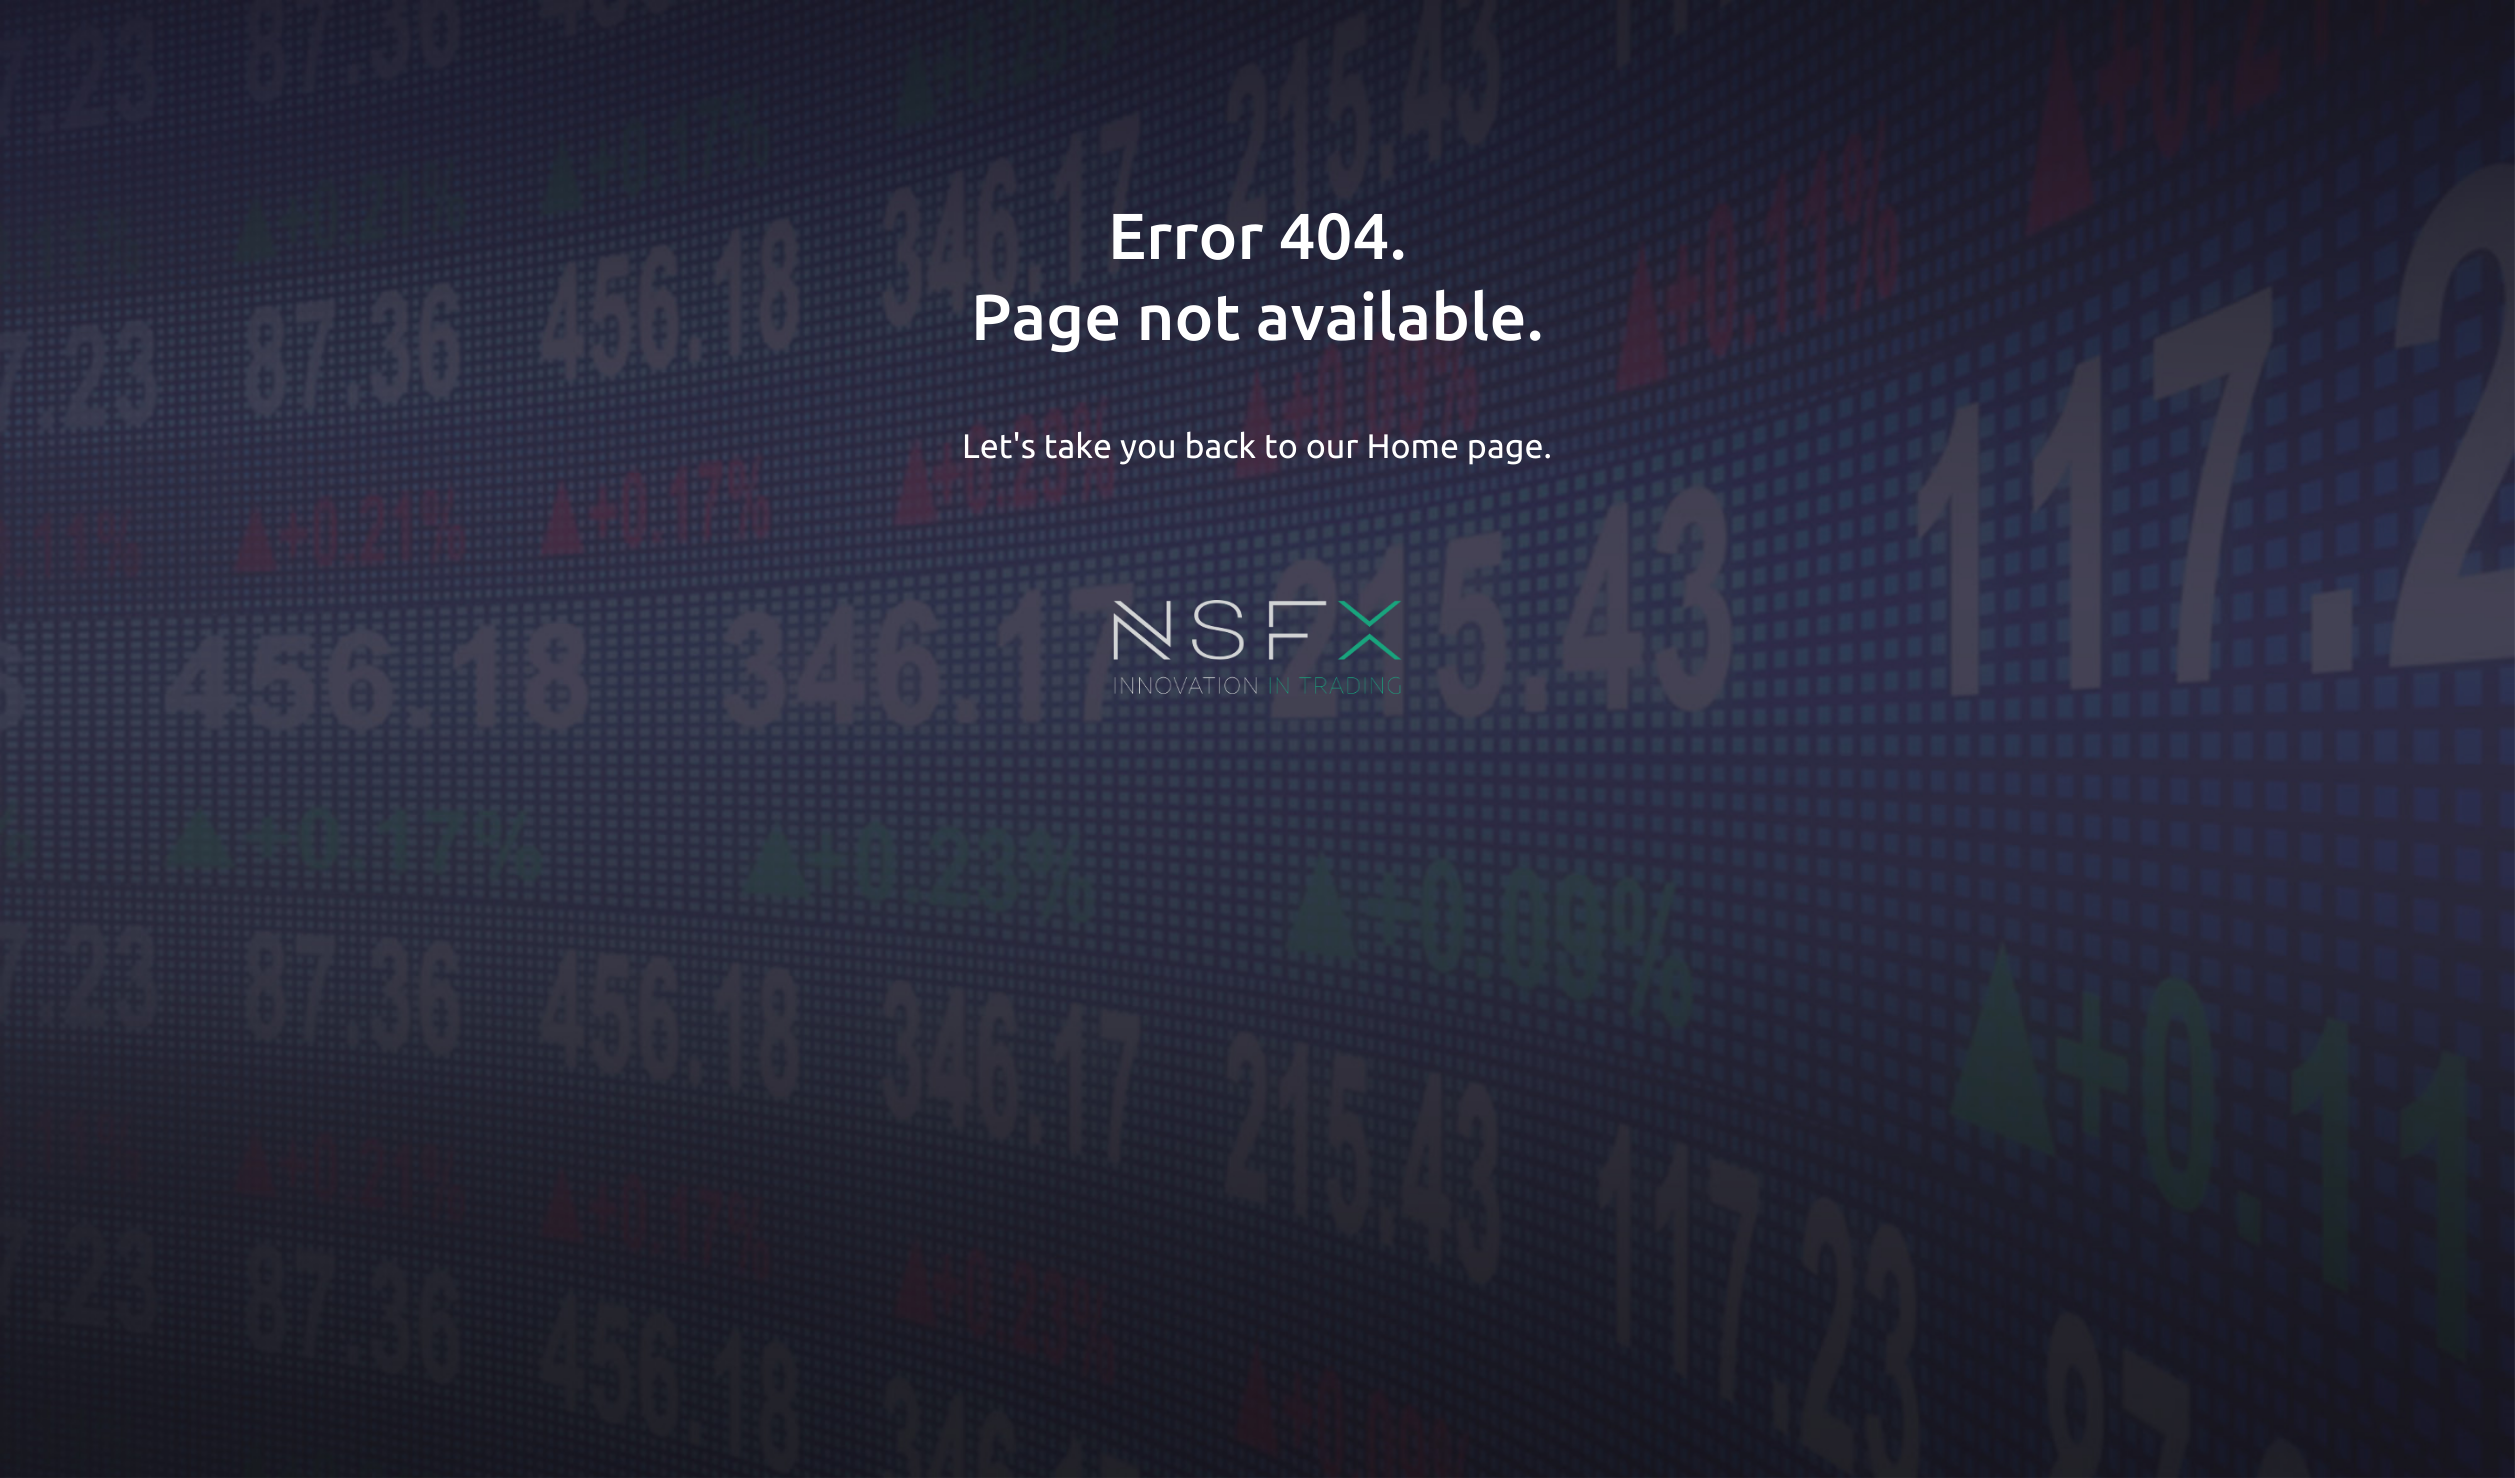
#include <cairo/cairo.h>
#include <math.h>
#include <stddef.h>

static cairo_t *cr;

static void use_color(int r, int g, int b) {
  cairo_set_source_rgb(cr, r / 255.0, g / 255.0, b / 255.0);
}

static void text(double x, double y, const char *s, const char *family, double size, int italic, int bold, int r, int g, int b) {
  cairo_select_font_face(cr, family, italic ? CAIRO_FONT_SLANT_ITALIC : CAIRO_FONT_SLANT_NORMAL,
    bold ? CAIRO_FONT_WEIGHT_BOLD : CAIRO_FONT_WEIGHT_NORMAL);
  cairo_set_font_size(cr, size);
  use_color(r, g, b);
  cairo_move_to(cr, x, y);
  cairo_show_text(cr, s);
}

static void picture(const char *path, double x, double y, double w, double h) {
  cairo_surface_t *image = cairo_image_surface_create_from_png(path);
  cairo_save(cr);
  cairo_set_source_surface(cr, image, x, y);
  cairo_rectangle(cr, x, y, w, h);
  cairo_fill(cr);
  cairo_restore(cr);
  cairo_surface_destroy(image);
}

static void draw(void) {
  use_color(255, 255, 255);
  cairo_paint(cr);
  picture("img_01.png", 0, 0, 2515, 1478);
  picture("img_02.png", 1113, 600, 289, 94);
  text(1108, 259, "Error 404.", "Ubuntu Medium", 65, 0, 0, 255, 255, 255);
  text(971, 340, "Page not available.", "Ubuntu Medium", 65, 0, 0, 255, 255, 255);
  text(962, 458, "Let's take you back to our Home page.", "Ubuntu", 34.1, 0, 0, 255, 255, 255);
}

int main(void) {
  cairo_surface_t *surface = cairo_image_surface_create(CAIRO_FORMAT_RGB24, 2515, 1478);
  cr = cairo_create(surface);
  cairo_font_options_t *options = cairo_font_options_create();
  cairo_font_options_set_hint_metrics(options, CAIRO_HINT_METRICS_OFF);
  cairo_font_options_set_hint_style(options, CAIRO_HINT_STYLE_NONE);
  cairo_set_font_options(cr, options);
  cairo_set_miter_limit(cr, 4);
  draw();
  cairo_surface_write_to_png(surface, "out.png");
  cairo_font_options_destroy(options);
  cairo_destroy(cr);
  cairo_surface_destroy(surface);
  return 0;
}
